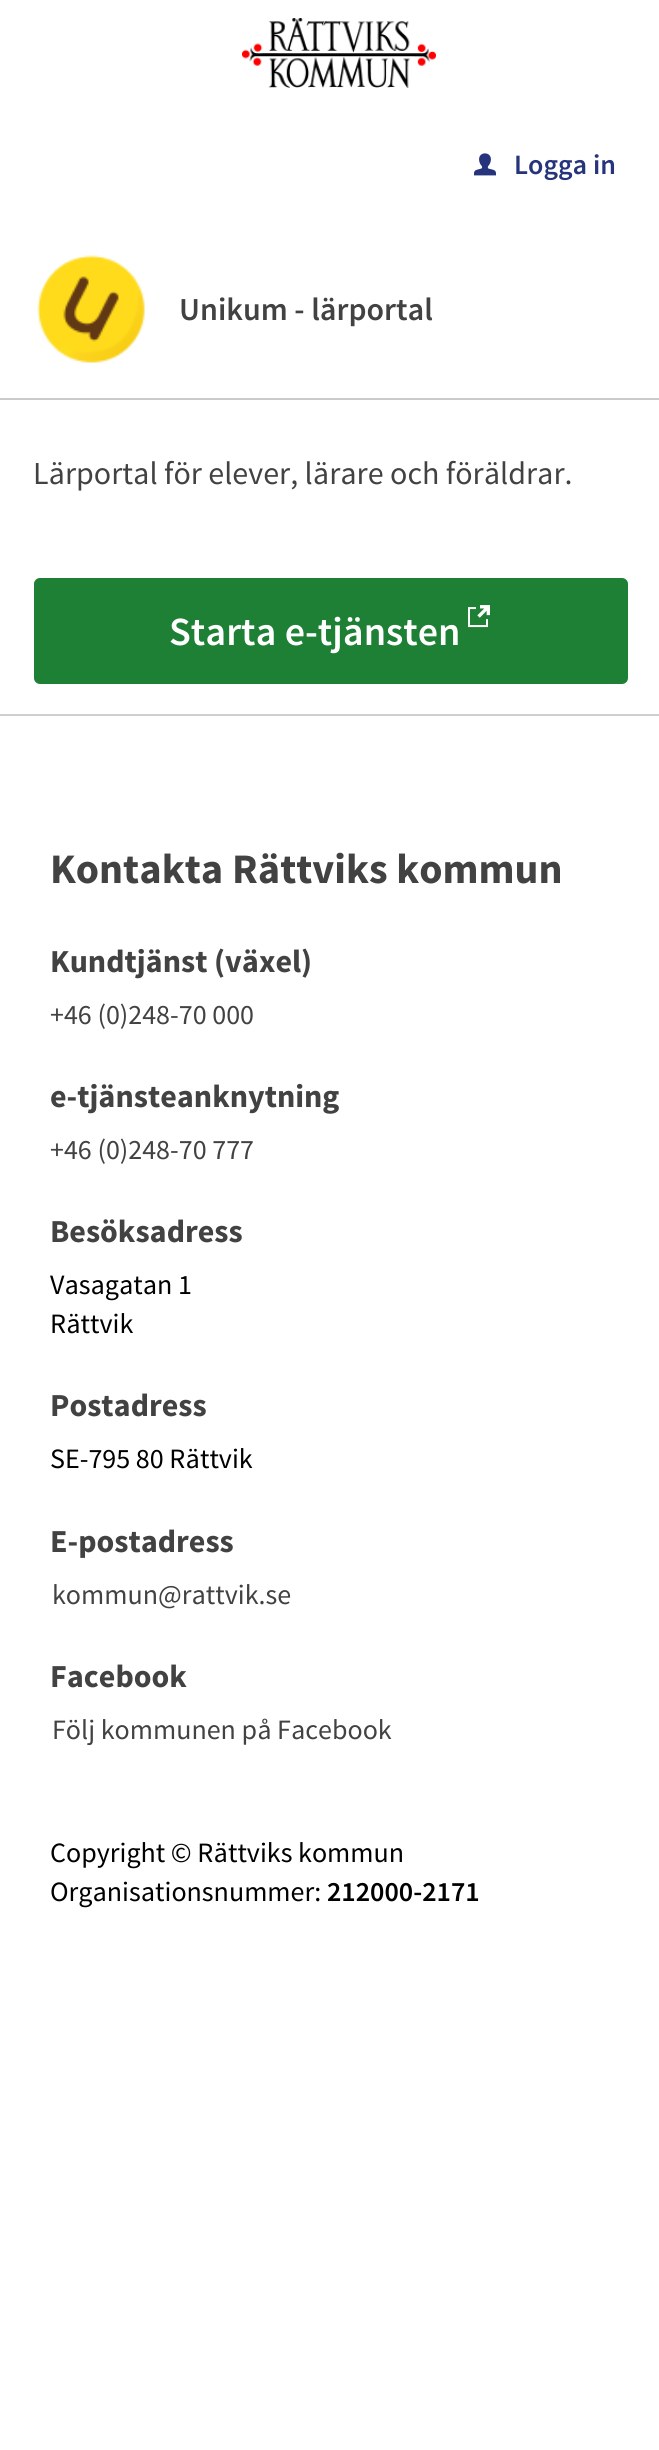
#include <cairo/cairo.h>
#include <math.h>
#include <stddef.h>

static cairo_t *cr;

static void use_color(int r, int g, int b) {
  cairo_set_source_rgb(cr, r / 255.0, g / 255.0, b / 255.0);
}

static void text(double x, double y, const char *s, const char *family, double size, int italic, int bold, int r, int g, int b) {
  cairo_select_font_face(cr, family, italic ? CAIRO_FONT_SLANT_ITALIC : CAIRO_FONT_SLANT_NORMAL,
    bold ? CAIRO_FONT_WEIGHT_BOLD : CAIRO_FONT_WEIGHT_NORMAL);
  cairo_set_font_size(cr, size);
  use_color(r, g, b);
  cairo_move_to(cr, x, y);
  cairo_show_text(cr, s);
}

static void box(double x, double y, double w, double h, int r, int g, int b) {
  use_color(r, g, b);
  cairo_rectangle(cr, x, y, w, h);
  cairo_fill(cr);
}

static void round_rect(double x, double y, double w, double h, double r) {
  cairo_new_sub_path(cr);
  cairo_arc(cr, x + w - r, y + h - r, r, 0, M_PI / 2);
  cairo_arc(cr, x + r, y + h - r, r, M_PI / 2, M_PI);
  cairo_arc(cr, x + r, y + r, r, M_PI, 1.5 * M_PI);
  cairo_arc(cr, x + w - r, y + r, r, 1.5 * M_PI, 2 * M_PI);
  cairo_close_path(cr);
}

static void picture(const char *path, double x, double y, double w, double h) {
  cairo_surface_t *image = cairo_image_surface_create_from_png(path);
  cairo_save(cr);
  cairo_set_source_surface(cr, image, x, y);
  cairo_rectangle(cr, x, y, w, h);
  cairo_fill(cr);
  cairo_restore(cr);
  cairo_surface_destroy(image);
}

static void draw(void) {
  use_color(255, 255, 255);
  cairo_paint(cr);
  picture("img_01.png", 242, 18, 194, 70);
  picture("img_02.png", 474, 153, 22, 23);
  box(0, 714, 659, 2, 207, 207, 207);
  picture("img_03.png", 37, 255, 108, 108);
  box(0, 398, 659, 2, 202, 202, 202);
  use_color(29, 128, 52);
  round_rect(34, 578, 594, 106, 6);
  cairo_fill(cr);
  picture("img_04.png", 468, 605, 22, 23);
  text(514, 174, "Logga in", "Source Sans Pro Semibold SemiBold", 28, 0, 0, 38, 52, 123);
  text(179, 320, "Unikum - lärportal", "Source Sans Pro Semibold SemiBold", 32, 0, 0, 66, 66, 66);
  text(33, 484, "Lärportal för elever, lärare och föräldrar.", "Source Sans Pro", 32, 0, 0, 66, 66, 66);
  text(169, 645, "Starta e-tjänsten", "Source Sans Pro Semibold SemiBold", 40, 0, 0, 255, 255, 255);
  text(50, 883, "Kontakta Rättviks kommun", "Source Sans Pro", 42, 0, 1, 66, 66, 66);
  text(50, 972, "Kundtjänst (växel)", "Source Sans Pro", 32, 0, 1, 66, 66, 66);
  text(50, 1024, "+46 (0)248-70 000", "Source Sans Pro", 28, 0, 0, 66, 66, 66);
  text(50, 1107, "e-tjänsteanknytning", "Source Sans Pro", 32, 0, 1, 66, 66, 66);
  text(50, 1159, "+46 (0)248-70 777", "Source Sans Pro", 28, 0, 0, 66, 66, 66);
  text(50, 1242, "Besöksadress", "Source Sans Pro", 32, 0, 1, 66, 66, 66);
  text(50, 1294, "Vasagatan 1", "Source Sans Pro", 28, 0, 0, 0, 0, 0);
  text(50, 1333, "Rättvik", "Source Sans Pro", 28, 0, 0, 0, 0, 0);
  text(50, 1416, "Postadress", "Source Sans Pro", 32, 0, 1, 66, 66, 66);
  text(50, 1468, "SE-795 80 Rättvik", "Source Sans Pro", 28, 0, 0, 0, 0, 0);
  text(50, 1552, "E-postadress", "Source Sans Pro", 32, 0, 1, 66, 66, 66);
  text(52, 1604, "kommun@rattvik.se", "Source Sans Pro", 28, 0, 0, 66, 66, 66);
  text(50, 1687, "Facebook", "Source Sans Pro", 32, 0, 1, 66, 66, 66);
  text(52, 1739, "Följ kommunen på Facebook", "Source Sans Pro", 28, 0, 0, 66, 66, 66);
  text(50, 1862, "Copyright © Rättviks kommun", "Source Sans Pro", 28, 0, 0, 0, 0, 0);
  text(50, 1901, "Organisationsnummer:", "Source Sans Pro", 28, 0, 0, 0, 0, 0);
  text(327, 1901, "212000-2171", "Source Sans Pro Semibold SemiBold", 28, 0, 0, 0, 0, 0);
}

int main(void) {
  cairo_surface_t *surface = cairo_image_surface_create(CAIRO_FORMAT_RGB24, 659, 2450);
  cr = cairo_create(surface);
  cairo_font_options_t *options = cairo_font_options_create();
  cairo_font_options_set_hint_metrics(options, CAIRO_HINT_METRICS_OFF);
  cairo_font_options_set_hint_style(options, CAIRO_HINT_STYLE_NONE);
  cairo_set_font_options(cr, options);
  cairo_set_miter_limit(cr, 4);
  draw();
  cairo_surface_write_to_png(surface, "out.png");
  cairo_font_options_destroy(options);
  cairo_destroy(cr);
  cairo_surface_destroy(surface);
  return 0;
}
